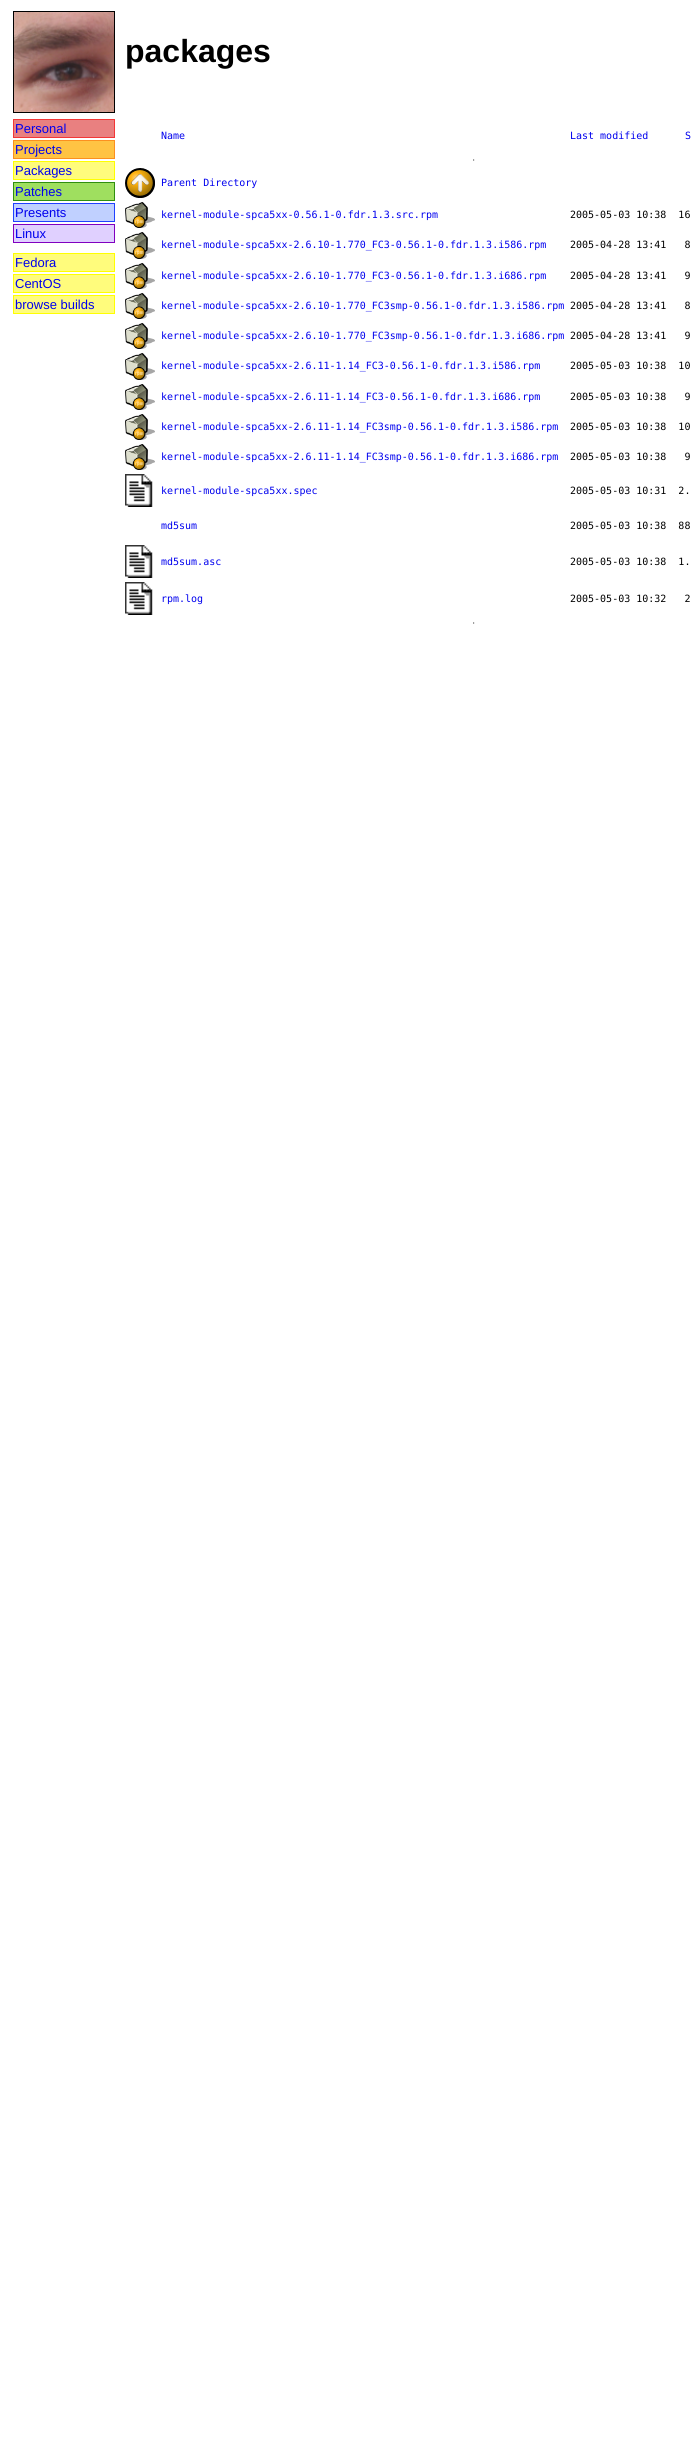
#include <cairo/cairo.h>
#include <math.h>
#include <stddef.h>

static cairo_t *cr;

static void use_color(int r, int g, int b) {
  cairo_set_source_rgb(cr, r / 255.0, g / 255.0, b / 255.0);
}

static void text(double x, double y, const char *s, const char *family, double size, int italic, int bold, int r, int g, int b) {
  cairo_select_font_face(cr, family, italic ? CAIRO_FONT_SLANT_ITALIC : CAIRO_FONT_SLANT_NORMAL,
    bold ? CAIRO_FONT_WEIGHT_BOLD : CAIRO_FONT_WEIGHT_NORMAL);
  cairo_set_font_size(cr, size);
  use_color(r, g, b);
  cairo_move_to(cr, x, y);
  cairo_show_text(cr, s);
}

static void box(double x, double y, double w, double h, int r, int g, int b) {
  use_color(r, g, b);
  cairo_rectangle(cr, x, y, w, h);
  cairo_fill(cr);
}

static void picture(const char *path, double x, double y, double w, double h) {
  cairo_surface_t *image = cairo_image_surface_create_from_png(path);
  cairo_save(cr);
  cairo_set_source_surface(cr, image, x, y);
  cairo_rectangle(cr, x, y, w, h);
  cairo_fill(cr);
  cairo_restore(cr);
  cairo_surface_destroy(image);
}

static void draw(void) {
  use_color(255, 255, 255);
  cairo_paint(cr);
  cairo_rectangle(cr, 13.5, 11.5, 101, 101);
  use_color(0, 0, 0);
  cairo_set_line_width(cr, 1);
  cairo_stroke(cr);
  picture("img_01.png", 14, 12, 100, 100);
  use_color(233, 128, 128);
  cairo_rectangle(cr, 13.5, 119.5, 101, 18);
  cairo_fill_preserve(cr);
  use_color(243, 54, 54);
  cairo_stroke(cr);
  use_color(255, 195, 67);
  cairo_rectangle(cr, 13.5, 140.5, 101, 18);
  cairo_fill_preserve(cr);
  use_color(252, 144, 31);
  cairo_stroke(cr);
  use_color(255, 252, 124);
  cairo_rectangle(cr, 13.5, 161.5, 101, 18);
  cairo_fill_preserve(cr);
  use_color(255, 255, 0);
  cairo_stroke(cr);
  use_color(159, 223, 95);
  cairo_rectangle(cr, 13.5, 182.5, 101, 18);
  cairo_fill_preserve(cr);
  use_color(47, 143, 15);
  cairo_stroke(cr);
  use_color(192, 208, 255);
  cairo_rectangle(cr, 13.5, 203.5, 101, 18);
  cairo_fill_preserve(cr);
  use_color(32, 64, 255);
  cairo_stroke(cr);
  use_color(224, 208, 255);
  cairo_rectangle(cr, 13.5, 224.5, 101, 18);
  cairo_fill_preserve(cr);
  use_color(128, 0, 192);
  cairo_stroke(cr);
  use_color(255, 252, 124);
  cairo_rectangle(cr, 13.5, 253.5, 101, 18);
  cairo_fill_preserve(cr);
  use_color(255, 255, 0);
  cairo_stroke(cr);
  use_color(255, 252, 124);
  cairo_rectangle(cr, 13.5, 274.5, 101, 18);
  cairo_fill_preserve(cr);
  use_color(255, 255, 0);
  cairo_stroke(cr);
  use_color(255, 252, 124);
  cairo_rectangle(cr, 13.5, 295.5, 101, 18);
  cairo_fill_preserve(cr);
  use_color(255, 255, 0);
  cairo_stroke(cr);
  box(474, 159, 1, 2, 238, 238, 238);
  box(473, 160, 2, 1, 238, 238, 238);
  box(473, 159, 1, 2, 159, 159, 159);
  picture("img_02.png", 125, 168, 30, 30);
  picture("img_03.png", 125, 202, 30, 26);
  picture("img_04.png", 125, 232, 30, 27);
  picture("img_05.png", 125, 263, 30, 26);
  picture("img_03.png", 125, 293, 30, 26);
  picture("img_03.png", 125, 323, 30, 26);
  picture("img_04.png", 125, 353, 30, 27);
  picture("img_03.png", 125, 384, 30, 26);
  picture("img_06.png", 125, 414, 30, 26);
  picture("img_03.png", 125, 444, 30, 26);
  picture("img_07.png", 125, 474, 28, 33);
  picture("img_07.png", 125, 545, 28, 33);
  picture("img_07.png", 125, 582, 28, 33);
  box(474, 622, 1, 2, 238, 238, 238);
  box(473, 623, 2, 1, 238, 238, 238);
  box(473, 622, 1, 2, 159, 159, 159);
  text(125, 62, "packages", "Liberation Sans", 32, 0, 1, 0, 0, 0);
  text(15, 133, "Personal", "Liberation Sans", 13, 0, 0, 0, 0, 238);
  text(15, 154, "Projects", "Liberation Sans", 13, 0, 0, 0, 0, 238);
  text(15, 175, "Packages", "Liberation Sans", 13, 0, 0, 0, 0, 238);
  text(15, 196, "Patches", "Liberation Sans", 13, 0, 0, 0, 0, 238);
  text(15, 217, "Presents", "Liberation Sans", 13, 0, 0, 0, 0, 238);
  text(15, 238, "Linux", "Liberation Sans", 13, 0, 0, 0, 0, 238);
  text(15, 267, "Fedora", "Liberation Sans", 13, 0, 0, 0, 0, 238);
  text(15, 288, "CentOS", "Liberation Sans", 13, 0, 0, 0, 0, 238);
  text(15, 309, "browse builds", "Liberation Sans", 13, 0, 0, 0, 0, 238);
  text(161, 139, "Name", "DejaVu Sans Mono", 10, 0, 0, 0, 0, 238);
  text(570, 139, "Last modified", "DejaVu Sans Mono", 10, 0, 0, 0, 0, 238);
  text(685, 139, "S", "DejaVu Sans Mono", 10, 0, 0, 0, 0, 238);
  text(161, 186, "Parent Directory", "DejaVu Sans Mono", 10, 0, 0, 0, 0, 238);
  text(161, 218, "kernel-module-spca5xx-0.56.1-0.fdr.1.3.src.rpm", "DejaVu Sans Mono", 10, 0, 0, 0, 0, 238);
  text(570, 218, "2005-05-03 10:38  16", "DejaVu Sans Mono", 10, 0, 0, 0, 0, 0);
  text(161, 248, "kernel-module-spca5xx-2.6.10-1.770_FC3-0.56.1-0.fdr.1.3.i586.rpm", "DejaVu Sans Mono", 10, 0, 0, 0, 0, 238);
  text(570, 248, "2005-04-28 13:41   8", "DejaVu Sans Mono", 10, 0, 0, 0, 0, 0);
  text(161, 279, "kernel-module-spca5xx-2.6.10-1.770_FC3-0.56.1-0.fdr.1.3.i686.rpm", "DejaVu Sans Mono", 10, 0, 0, 0, 0, 238);
  text(570, 279, "2005-04-28 13:41   9", "DejaVu Sans Mono", 10, 0, 0, 0, 0, 0);
  text(161, 309, "kernel-module-spca5xx-2.6.10-1.770_FC3smp-0.56.1-0.fdr.1.3.i586.rpm", "DejaVu Sans Mono", 10, 0, 0, 0, 0, 238);
  text(570, 309, "2005-04-28 13:41   8", "DejaVu Sans Mono", 10, 0, 0, 0, 0, 0);
  text(161, 339, "kernel-module-spca5xx-2.6.10-1.770_FC3smp-0.56.1-0.fdr.1.3.i686.rpm", "DejaVu Sans Mono", 10, 0, 0, 0, 0, 238);
  text(570, 339, "2005-04-28 13:41   9", "DejaVu Sans Mono", 10, 0, 0, 0, 0, 0);
  text(161, 369, "kernel-module-spca5xx-2.6.11-1.14_FC3-0.56.1-0.fdr.1.3.i586.rpm", "DejaVu Sans Mono", 10, 0, 0, 0, 0, 238);
  text(570, 369, "2005-05-03 10:38  10", "DejaVu Sans Mono", 10, 0, 0, 0, 0, 0);
  text(161, 400, "kernel-module-spca5xx-2.6.11-1.14_FC3-0.56.1-0.fdr.1.3.i686.rpm", "DejaVu Sans Mono", 10, 0, 0, 0, 0, 238);
  text(570, 400, "2005-05-03 10:38   9", "DejaVu Sans Mono", 10, 0, 0, 0, 0, 0);
  text(161, 430, "kernel-module-spca5xx-2.6.11-1.14_FC3smp-0.56.1-0.fdr.1.3.i586.rpm", "DejaVu Sans Mono", 10, 0, 0, 0, 0, 238);
  text(570, 430, "2005-05-03 10:38  10", "DejaVu Sans Mono", 10, 0, 0, 0, 0, 0);
  text(161, 460, "kernel-module-spca5xx-2.6.11-1.14_FC3smp-0.56.1-0.fdr.1.3.i686.rpm", "DejaVu Sans Mono", 10, 0, 0, 0, 0, 238);
  text(570, 460, "2005-05-03 10:38   9", "DejaVu Sans Mono", 10, 0, 0, 0, 0, 0);
  text(161, 494, "kernel-module-spca5xx.spec", "DejaVu Sans Mono", 10, 0, 0, 0, 0, 238);
  text(570, 494, "2005-05-03 10:31  2.", "DejaVu Sans Mono", 10, 0, 0, 0, 0, 0);
  text(161, 529, "md5sum", "DejaVu Sans Mono", 10, 0, 0, 0, 0, 238);
  text(570, 529, "2005-05-03 10:38  88", "DejaVu Sans Mono", 10, 0, 0, 0, 0, 0);
  text(161, 565, "md5sum.asc", "DejaVu Sans Mono", 10, 0, 0, 0, 0, 238);
  text(570, 565, "2005-05-03 10:38  1.", "DejaVu Sans Mono", 10, 0, 0, 0, 0, 0);
  text(161, 602, "rpm.log", "DejaVu Sans Mono", 10, 0, 0, 0, 0, 238);
  text(570, 602, "2005-05-03 10:32   2", "DejaVu Sans Mono", 10, 0, 0, 0, 0, 0);
}

int main(void) {
  cairo_surface_t *surface = cairo_image_surface_create(CAIRO_FORMAT_RGB24, 693, 2449);
  cr = cairo_create(surface);
  cairo_font_options_t *options = cairo_font_options_create();
  cairo_font_options_set_hint_metrics(options, CAIRO_HINT_METRICS_OFF);
  cairo_font_options_set_hint_style(options, CAIRO_HINT_STYLE_NONE);
  cairo_set_font_options(cr, options);
  cairo_set_miter_limit(cr, 4);
  draw();
  cairo_surface_write_to_png(surface, "out.png");
  cairo_font_options_destroy(options);
  cairo_destroy(cr);
  cairo_surface_destroy(surface);
  return 0;
}
